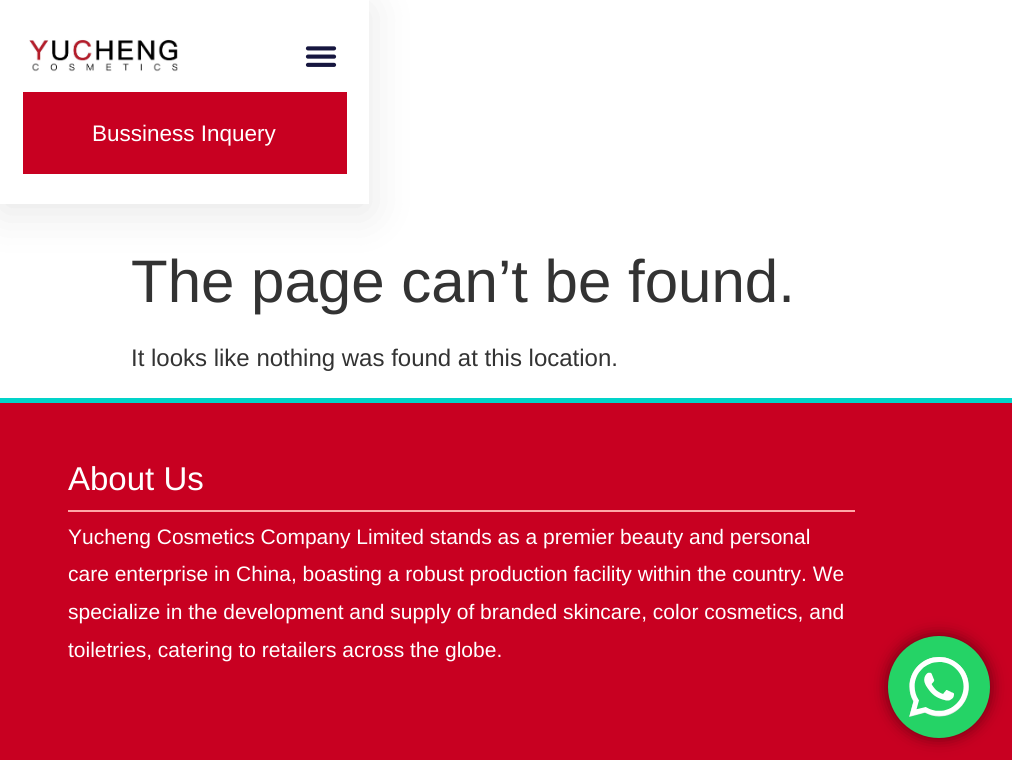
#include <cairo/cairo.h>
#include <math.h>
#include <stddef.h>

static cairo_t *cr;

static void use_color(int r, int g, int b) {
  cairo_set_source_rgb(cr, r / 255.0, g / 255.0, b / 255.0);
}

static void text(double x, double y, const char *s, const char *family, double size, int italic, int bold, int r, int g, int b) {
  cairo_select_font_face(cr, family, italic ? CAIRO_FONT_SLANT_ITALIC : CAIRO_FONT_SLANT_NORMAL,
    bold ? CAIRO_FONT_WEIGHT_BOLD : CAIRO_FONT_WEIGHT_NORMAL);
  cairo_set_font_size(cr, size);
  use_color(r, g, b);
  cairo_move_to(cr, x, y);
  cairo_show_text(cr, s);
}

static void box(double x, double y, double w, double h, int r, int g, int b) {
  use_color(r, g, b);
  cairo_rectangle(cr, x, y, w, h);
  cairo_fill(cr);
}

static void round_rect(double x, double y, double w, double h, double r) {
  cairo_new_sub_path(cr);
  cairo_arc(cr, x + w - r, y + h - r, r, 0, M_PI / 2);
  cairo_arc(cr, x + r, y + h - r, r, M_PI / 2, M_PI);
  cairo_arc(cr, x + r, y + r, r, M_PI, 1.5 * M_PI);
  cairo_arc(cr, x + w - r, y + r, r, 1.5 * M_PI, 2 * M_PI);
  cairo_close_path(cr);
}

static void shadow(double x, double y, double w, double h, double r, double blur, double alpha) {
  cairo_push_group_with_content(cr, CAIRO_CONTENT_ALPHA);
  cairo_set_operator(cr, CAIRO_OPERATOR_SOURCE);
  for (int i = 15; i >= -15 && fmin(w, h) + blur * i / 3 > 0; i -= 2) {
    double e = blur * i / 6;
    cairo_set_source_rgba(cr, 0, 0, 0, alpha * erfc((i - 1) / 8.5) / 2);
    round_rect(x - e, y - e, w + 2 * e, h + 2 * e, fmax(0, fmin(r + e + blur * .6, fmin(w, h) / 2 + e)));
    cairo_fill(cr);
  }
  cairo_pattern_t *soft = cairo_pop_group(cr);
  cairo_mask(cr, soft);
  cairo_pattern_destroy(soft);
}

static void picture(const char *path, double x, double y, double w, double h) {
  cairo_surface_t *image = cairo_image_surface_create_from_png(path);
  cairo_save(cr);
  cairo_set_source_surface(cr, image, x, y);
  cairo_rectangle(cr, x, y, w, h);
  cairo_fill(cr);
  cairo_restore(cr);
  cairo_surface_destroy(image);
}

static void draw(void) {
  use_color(255, 255, 255);
  cairo_paint(cr);
  cairo_save(cr);
  cairo_set_fill_rule(cr, CAIRO_FILL_RULE_EVEN_ODD);
  cairo_new_path(cr);
  cairo_move_to(cr, 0, 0);
  cairo_line_to(cr, 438, 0);
  cairo_line_to(cr, 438, 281);
  cairo_line_to(cr, 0, 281);
  cairo_close_path(cr);
  cairo_move_to(cr, 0, 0);
  cairo_line_to(cr, 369, 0);
  cairo_line_to(cr, 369, 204);
  cairo_line_to(cr, 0, 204);
  cairo_close_path(cr);
  cairo_clip(cr);
  use_color(0, 0, 0);
  shadow(0, 8, 369, 204, 0, 22.5, 0.1);
  cairo_restore(cr);
  picture("img_01.png", 29, 39, 149, 33);
  picture("img_02.png", 305, 46, 32, 21);
  box(23, 92, 324, 82, 200, 0, 33);
  box(0, 403, 1012, 357, 200, 0, 33);
  box(0, 398, 1012, 5, 2, 211, 201);
  box(68, 510, 787, 2, 255, 167, 167);
  use_color(0, 0, 0);
  shadow(888, 636, 102, 102, 51, 8, 0.5);
  use_color(37, 211, 102);
  cairo_arc(cr, 939, 687, 51, 0, 2 * M_PI);
  cairo_fill(cr);
  picture("img_03.png", 909, 657, 60, 60);
  text(92, 141, "Bussiness Inquery", "Liberation Sans", 22.5, 0, 0, 255, 255, 255);
  text(131, 302, "The page can’t be found.", "Liberation Sans", 60, 0, 0, 51, 51, 51);
  text(131, 366, "It looks like nothing was found at this location.", "Liberation Sans", 24, 0, 0, 51, 51, 51);
  text(68, 490, "About Us", "Liberation Sans", 33, 0, 0, 255, 255, 255);
  text(68, 544, "Yucheng Cosmetics Company Limited stands as a premier beauty and personal", "Liberation Sans", 21, 0, 0, 255, 255, 255);
  text(68, 581, "care enterprise in China, boasting a robust production facility within the country. We", "Liberation Sans", 21, 0, 0, 255, 255, 255);
  text(68, 619, "specialize in the development and supply of branded skincare, color cosmetics, and", "Liberation Sans", 21, 0, 0, 255, 255, 255);
  text(68, 657, "toiletries, catering to retailers across the globe.", "Liberation Sans", 21, 0, 0, 255, 255, 255);
}

int main(void) {
  cairo_surface_t *surface = cairo_image_surface_create(CAIRO_FORMAT_RGB24, 1012, 760);
  cr = cairo_create(surface);
  cairo_font_options_t *options = cairo_font_options_create();
  cairo_font_options_set_hint_metrics(options, CAIRO_HINT_METRICS_OFF);
  cairo_font_options_set_hint_style(options, CAIRO_HINT_STYLE_NONE);
  cairo_set_font_options(cr, options);
  cairo_set_miter_limit(cr, 4);
  draw();
  cairo_surface_write_to_png(surface, "out.png");
  cairo_font_options_destroy(options);
  cairo_destroy(cr);
  cairo_surface_destroy(surface);
  return 0;
}
